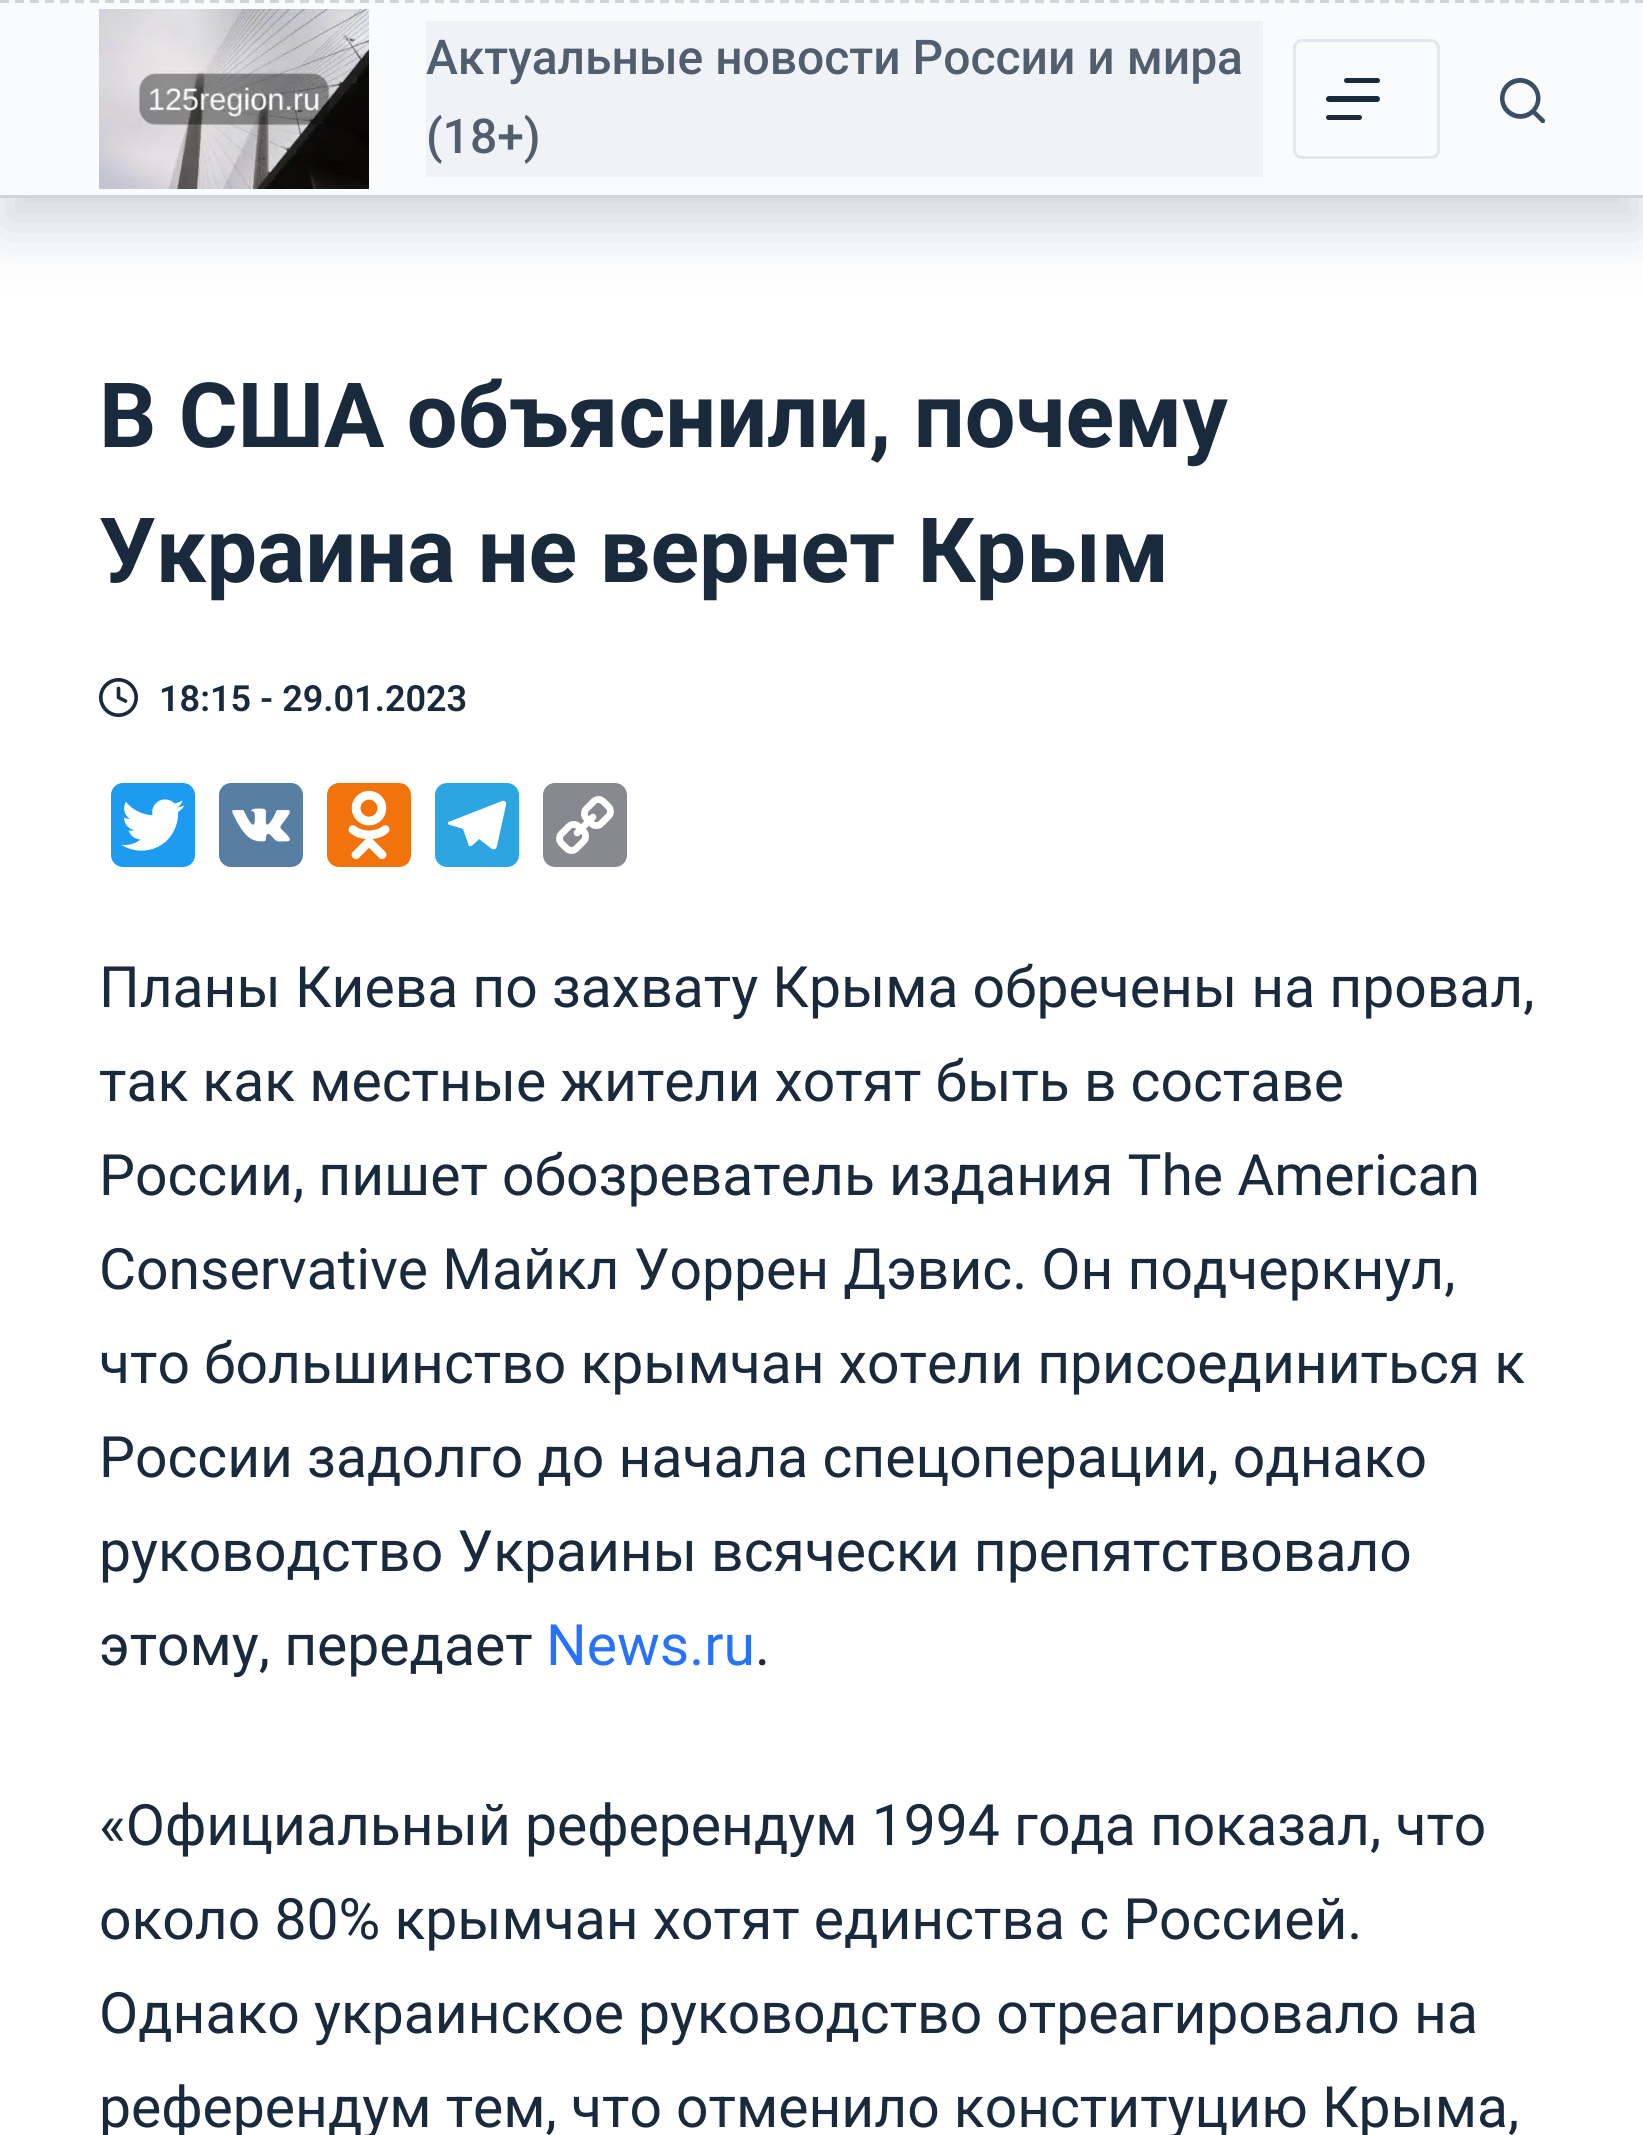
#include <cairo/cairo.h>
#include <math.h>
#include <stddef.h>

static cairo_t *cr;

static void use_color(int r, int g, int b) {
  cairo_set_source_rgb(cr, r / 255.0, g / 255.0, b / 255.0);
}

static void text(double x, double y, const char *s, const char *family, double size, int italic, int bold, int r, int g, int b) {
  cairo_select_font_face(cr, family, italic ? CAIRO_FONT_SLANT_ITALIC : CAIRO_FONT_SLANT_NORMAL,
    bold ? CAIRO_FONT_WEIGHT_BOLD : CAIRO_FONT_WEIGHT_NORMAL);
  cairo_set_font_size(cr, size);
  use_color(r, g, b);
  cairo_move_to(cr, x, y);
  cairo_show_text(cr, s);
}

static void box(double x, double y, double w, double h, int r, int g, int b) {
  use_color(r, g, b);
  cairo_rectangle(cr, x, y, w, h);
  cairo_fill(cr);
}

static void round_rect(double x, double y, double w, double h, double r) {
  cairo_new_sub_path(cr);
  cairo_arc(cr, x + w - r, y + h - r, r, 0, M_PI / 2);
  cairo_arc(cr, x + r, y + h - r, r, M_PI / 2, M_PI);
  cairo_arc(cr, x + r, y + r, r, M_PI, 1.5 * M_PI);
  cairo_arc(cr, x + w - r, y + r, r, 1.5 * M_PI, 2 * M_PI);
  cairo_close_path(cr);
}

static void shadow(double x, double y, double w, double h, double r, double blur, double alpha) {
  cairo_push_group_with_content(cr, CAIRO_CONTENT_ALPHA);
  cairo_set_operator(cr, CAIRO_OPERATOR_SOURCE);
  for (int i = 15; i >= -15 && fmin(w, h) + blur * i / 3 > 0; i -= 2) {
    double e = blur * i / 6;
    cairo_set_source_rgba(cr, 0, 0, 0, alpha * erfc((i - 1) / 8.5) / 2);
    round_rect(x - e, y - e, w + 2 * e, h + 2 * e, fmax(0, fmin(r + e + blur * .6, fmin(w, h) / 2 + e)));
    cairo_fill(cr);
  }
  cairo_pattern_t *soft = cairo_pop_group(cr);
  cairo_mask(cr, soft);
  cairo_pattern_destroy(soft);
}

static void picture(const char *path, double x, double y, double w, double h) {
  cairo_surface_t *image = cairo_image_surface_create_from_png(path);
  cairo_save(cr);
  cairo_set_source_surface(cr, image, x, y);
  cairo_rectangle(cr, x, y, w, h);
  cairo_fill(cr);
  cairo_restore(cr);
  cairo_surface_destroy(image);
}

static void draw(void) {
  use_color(255, 255, 255);
  cairo_paint(cr);
  use_color(44, 62, 80);
  shadow(0, 30, 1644, 198, 0, 30, 0.2);
  box(0, 0, 1643, 195, 250, 251, 252);
  cairo_new_path(cr);
  cairo_move_to(cr, 0, 1.5);
  cairo_line_to(cr, 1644, 1.5);
  use_color(209, 213, 218);
  cairo_set_line_width(cr, 3);
  cairo_set_dash(cr, (double[]){9, 6}, 2, 0);
  cairo_stroke(cr);
  box(0, 195, 1643, 3, 209, 213, 218);
  picture("img_01.png", 99, 9, 270, 180);
  box(426, 21, 837, 156, 239, 243, 247);
  round_rect(1294.5, 40.5, 144, 117, 7.5);
  use_color(227, 231, 237);
  cairo_set_dash(cr, NULL, 0, 0);
  cairo_stroke(cr);
  use_color(25, 42, 61);
  round_rect(1344, 78, 36, 5, 2.5);
  cairo_fill(cr);
  round_rect(1326, 96, 54, 6, 3);
  cairo_fill(cr);
  round_rect(1326, 115, 36, 5, 2.5);
  cairo_fill(cr);
  picture("img_02.png", 1500, 78, 45, 45);
  picture("img_03.png", 99, 678, 39, 39);
  use_color(29, 155, 240);
  round_rect(111, 783, 84, 84, 12);
  cairo_fill(cr);
  picture("img_04.png", 121, 799, 64, 52);
  use_color(88, 126, 163);
  round_rect(219, 783, 84, 84, 12);
  cairo_fill(cr);
  picture("img_05.png", 232, 808, 58, 34);
  use_color(242, 114, 12);
  round_rect(327, 783, 84, 84, 12);
  cairo_fill(cr);
  picture("img_06.png", 348, 790, 42, 70);
  use_color(44, 165, 224);
  round_rect(435, 783, 84, 84, 12);
  cairo_fill(cr);
  use_color(255, 255, 255);
  cairo_new_path(cr);
  cairo_move_to(cr, 502, 801);
  cairo_line_to(cr, 451, 821);
  cairo_curve_to(cr, 447, 822, 447, 824, 450, 825);
  cairo_line_to(cr, 463, 829);
  cairo_line_to(cr, 469, 846);
  cairo_curve_to(cr, 471, 848, 478, 840, 479, 839);
  cairo_line_to(cr, 492, 849);
  cairo_curve_to(cr, 495, 850, 496, 849, 497, 846);
  cairo_line_to(cr, 506, 805);
  cairo_curve_to(cr, 507, 802, 504, 800, 502, 801);
  cairo_close_path(cr);
  cairo_fill(cr);
  use_color(136, 137, 144);
  round_rect(543, 783, 84, 84, 12);
  cairo_fill(cr);
  picture("img_07.png", 556, 796, 58, 58);
  text(426, 74, "Актуальные новости России и мира", "Roboto Medium", 48, 0, 0, 81, 94, 109);
  text(426, 153, "(18+)", "Roboto Medium", 48, 0, 0, 81, 94, 109);
  text(99, 447, "В США объяснили, почему", "Roboto", 90, 0, 1, 25, 42, 61);
  text(99, 582, "Украина не вернет Крым", "Roboto", 90, 0, 1, 25, 42, 61);
  text(159, 711, "18:15 - 29.01.2023", "Roboto SemiBold", 36, 0, 0, 25, 42, 61);
  text(99, 1007, "Планы Киева по захвату Крыма обречены на провал,", "Roboto", 57, 0, 0, 25, 42, 61);
  text(99, 1101, "так как местные жители хотят быть в составе", "Roboto", 57, 0, 0, 25, 42, 61);
  text(99, 1195, "России, пишет обозреватель издания The American", "Roboto", 57, 0, 0, 25, 42, 61);
  text(99, 1289, "Conservative Майкл Уоррен Дэвис. Он подчеркнул,", "Roboto", 57, 0, 0, 25, 42, 61);
  text(99, 1383, "что большинство крымчан хотели присоединиться к", "Roboto", 57, 0, 0, 25, 42, 61);
  text(99, 1477, "России задолго до начала спецоперации, однако", "Roboto", 57, 0, 0, 25, 42, 61);
  text(99, 1571, "руководство Украины всячески препятствовало", "Roboto", 57, 0, 0, 25, 42, 61);
  text(99, 1665, "этому, передает", "Roboto", 57, 0, 0, 25, 42, 61);
  text(546, 1665, "News.ru", "Roboto", 57, 0, 0, 40, 114, 250);
  text(755, 1665, ".", "Roboto", 57, 0, 0, 25, 42, 61);
  text(99, 1845, "«Официальный референдум 1994 года показал, что", "Roboto", 57, 0, 0, 25, 42, 61);
  text(99, 1939, "около 80% крымчан хотят единства с Россией.", "Roboto", 57, 0, 0, 25, 42, 61);
  text(99, 2033, "Однако украинское руководство отреагировало на", "Roboto", 57, 0, 0, 25, 42, 61);
  text(99, 2127, "референдум тем, что отменило конституцию Крыма,", "Roboto", 57, 0, 0, 25, 42, 61);
}

int main(void) {
  cairo_surface_t *surface = cairo_image_surface_create(CAIRO_FORMAT_RGB24, 1643, 2135);
  cr = cairo_create(surface);
  cairo_font_options_t *options = cairo_font_options_create();
  cairo_font_options_set_hint_metrics(options, CAIRO_HINT_METRICS_OFF);
  cairo_font_options_set_hint_style(options, CAIRO_HINT_STYLE_NONE);
  cairo_set_font_options(cr, options);
  cairo_set_miter_limit(cr, 4);
  draw();
  cairo_surface_write_to_png(surface, "out.png");
  cairo_font_options_destroy(options);
  cairo_destroy(cr);
  cairo_surface_destroy(surface);
  return 0;
}
